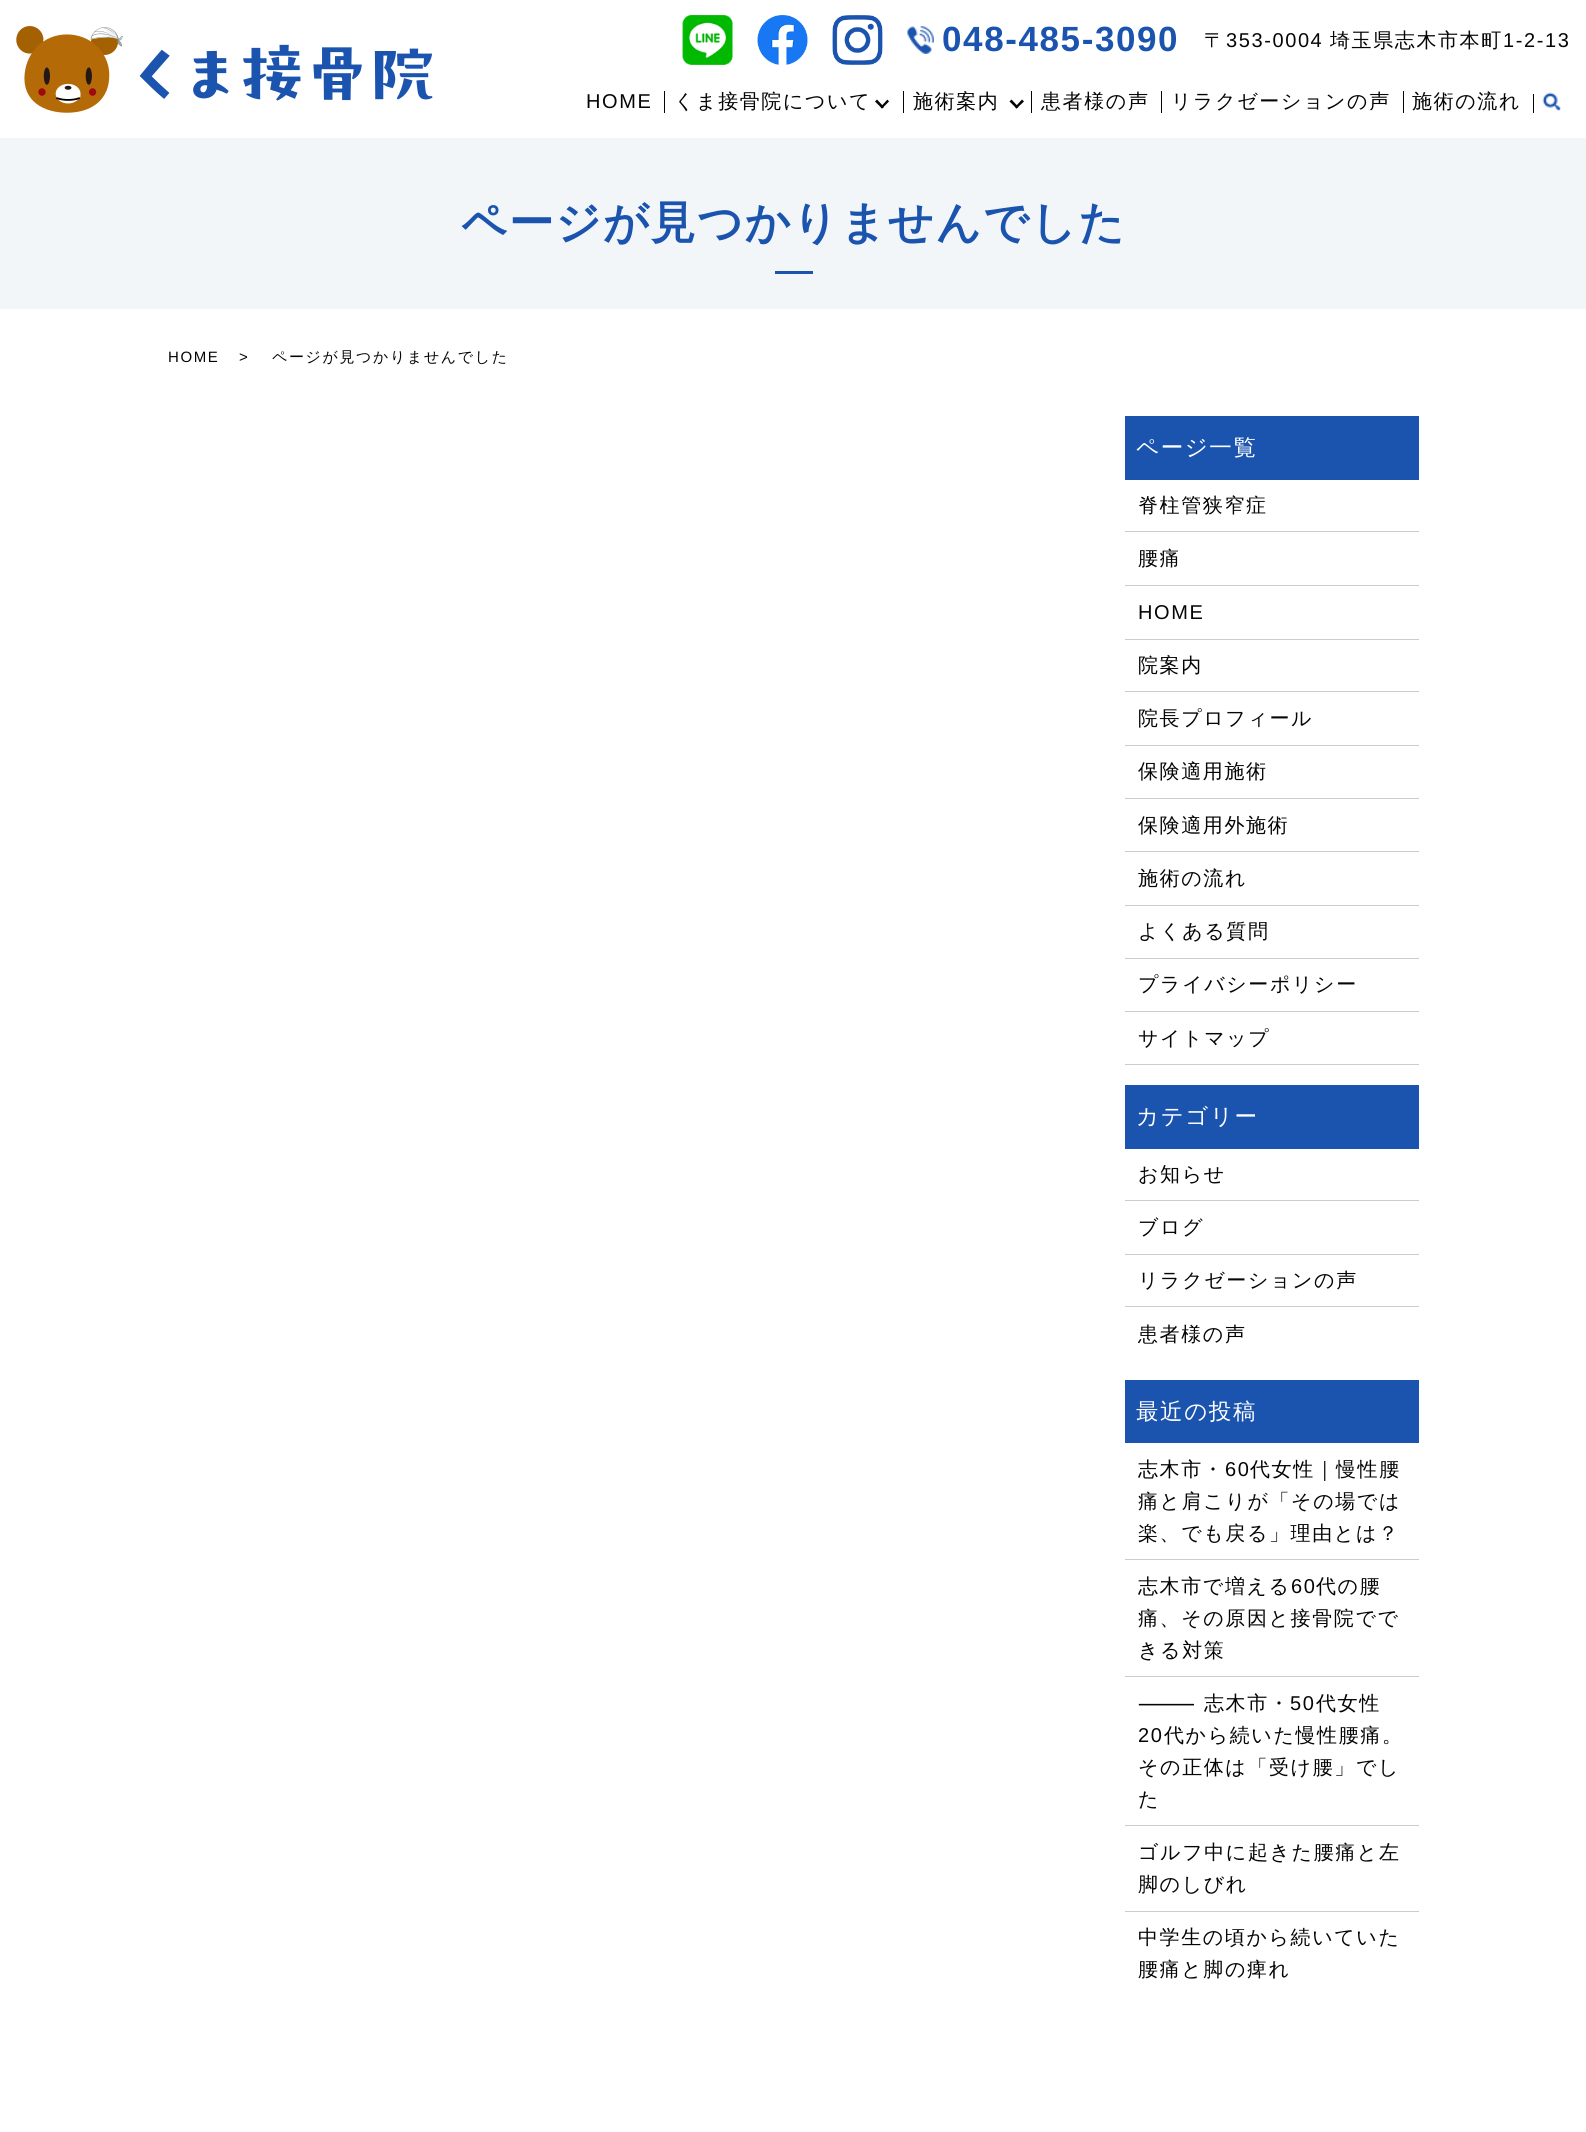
#include <cairo/cairo.h>
#include <math.h>
#include <stddef.h>

static cairo_t *cr;

static void use_color(int r, int g, int b) {
  cairo_set_source_rgb(cr, r / 255.0, g / 255.0, b / 255.0);
}

static void spaced_text(double x, double y, const char *s, double letter, double word) {
  cairo_move_to(cr, x, y);
  while (*s) {
    char ch[5] = {0};
    int n = 0;
    do ch[n++] = *s++; while ((*s & 0xC0) == 0x80);
    cairo_show_text(cr, ch);
    cairo_rel_move_to(cr, letter + word * (*ch == ' '), 0);
  }
}

static void box(double x, double y, double w, double h, int r, int g, int b) {
  use_color(r, g, b);
  cairo_rectangle(cr, x, y, w, h);
  cairo_fill(cr);
}

static void picture(const char *path, double x, double y, double w, double h) {
  cairo_surface_t *image = cairo_image_surface_create_from_png(path);
  cairo_save(cr);
  cairo_set_source_surface(cr, image, x, y);
  cairo_rectangle(cr, x, y, w, h);
  cairo_fill(cr);
  cairo_restore(cr);
  cairo_surface_destroy(image);
}

static void draw(void) {
  use_color(255, 255, 255);
  cairo_paint(cr);
  picture("img_01.png", 16, 26, 417, 87);
  picture("img_02.png", 682, 15, 51, 50);
  picture("img_03.png", 757, 15, 51, 50);
  picture("img_04.png", 832, 15, 51, 50);
  picture("img_05.png", 907, 26, 27, 28);
  box(664, 91, 1, 22, 5, 5, 5);
  cairo_new_path(cr);
  cairo_move_to(cr, 889, 101.5);
  cairo_line_to(cr, 882, 108.5);
  cairo_line_to(cr, 880.5, 107);
  cairo_line_to(cr, 887.5, 99.5);
  cairo_close_path(cr);
  cairo_fill(cr);
  cairo_new_path(cr);
  cairo_move_to(cr, 884, 107);
  cairo_line_to(cr, 882, 108.5);
  cairo_line_to(cr, 875, 101.5);
  cairo_line_to(cr, 877, 99.5);
  cairo_close_path(cr);
  cairo_fill(cr);
  box(903, 91, 1, 22, 5, 5, 5);
  cairo_new_path(cr);
  cairo_move_to(cr, 1024, 101.5);
  cairo_line_to(cr, 1016.5, 108.5);
  cairo_line_to(cr, 1015, 107);
  cairo_line_to(cr, 1022, 99.5);
  cairo_close_path(cr);
  cairo_fill(cr);
  cairo_new_path(cr);
  cairo_move_to(cr, 1018.5, 107);
  cairo_line_to(cr, 1016.5, 108.5);
  cairo_line_to(cr, 1009.5, 101.5);
  cairo_line_to(cr, 1011.5, 99.5);
  cairo_close_path(cr);
  cairo_fill(cr);
  box(1031, 91, 1, 22, 5, 5, 5);
  box(1161, 91, 1, 22, 5, 5, 5);
  box(1403, 91, 1, 22, 5, 5, 5);
  picture("img_06.png", 1542, 92, 19, 19);
  box(1533, 94, 1, 19, 5, 5, 5);
  box(0, 138, 1586, 171, 242, 246, 249);
  box(775, 271, 38, 3, 27, 84, 175);
  box(1125, 416, 294, 64, 27, 84, 175);
  box(1125, 531, 294, 1, 204, 204, 204);
  box(1125, 585, 294, 1, 204, 204, 204);
  box(1125, 639, 294, 1, 204, 204, 204);
  box(1125, 691, 294, 1, 204, 204, 204);
  box(1125, 745, 294, 1, 204, 204, 204);
  box(1125, 798, 294, 1, 204, 204, 204);
  box(1125, 851, 294, 1, 204, 204, 204);
  box(1125, 905, 294, 1, 204, 204, 204);
  box(1125, 958, 294, 1, 204, 204, 204);
  box(1125, 1011, 294, 1, 204, 204, 204);
  box(1125, 1064, 294, 1, 204, 204, 204);
  box(1125, 1085, 294, 64, 27, 84, 175);
  box(1125, 1200, 294, 1, 204, 204, 204);
  box(1125, 1254, 294, 1, 204, 204, 204);
  box(1125, 1306, 294, 1, 204, 204, 204);
  box(1125, 1380, 294, 63, 27, 84, 175);
  box(1125, 1559, 294, 1, 204, 204, 204);
  box(1125, 1676, 294, 1, 204, 204, 204);
  box(1125, 1825, 294, 1, 204, 204, 204);
  box(1125, 1911, 294, 1, 204, 204, 204);
  cairo_select_font_face(cr, "Liberation Sans", CAIRO_FONT_SLANT_NORMAL, CAIRO_FONT_WEIGHT_BOLD);
  cairo_set_font_size(cr, 35);
  use_color(27, 84, 175);
  spaced_text(942, 51, "048-485-3090", 1.6, 0);
  cairo_select_font_face(cr, "WenQuanYi Zen Hei Medium", CAIRO_FONT_SLANT_NORMAL, CAIRO_FONT_WEIGHT_NORMAL);
  cairo_set_font_size(cr, 20);
  use_color(5, 5, 5);
  spaced_text(1204, 47, "〒", 1.6, 0);
  cairo_select_font_face(cr, "Liberation Sans", CAIRO_FONT_SLANT_NORMAL, CAIRO_FONT_WEIGHT_NORMAL);
  spaced_text(1226, 47, "353-0004", 1.6, 0);
  cairo_select_font_face(cr, "WenQuanYi Zen Hei Medium", CAIRO_FONT_SLANT_NORMAL, CAIRO_FONT_WEIGHT_NORMAL);
  spaced_text(1330, 47, "埼玉県志木市本町", 1.6, 0);
  cairo_select_font_face(cr, "Liberation Sans", CAIRO_FONT_SLANT_NORMAL, CAIRO_FONT_WEIGHT_NORMAL);
  spaced_text(1503, 47, "1-2-13", 1.6, 0);
  spaced_text(586, 108, "HOME", 1.6, 0);
  cairo_select_font_face(cr, "WenQuanYi Zen Hei Medium", CAIRO_FONT_SLANT_NORMAL, CAIRO_FONT_WEIGHT_NORMAL);
  spaced_text(674, 108, "くま接骨院について", 1.6, 0);
  spaced_text(913, 108, "施術案内", 1.6, 0);
  spaced_text(1041, 108, "患者様の声", 1.6, 0);
  spaced_text(1171, 108, "リラクゼーションの声", 1.6, 0);
  spaced_text(1412, 108, "施術の流れ", 1.6, 0);
  cairo_select_font_face(cr, "WenQuanYi Zen Hei", CAIRO_FONT_SLANT_NORMAL, CAIRO_FONT_WEIGHT_BOLD);
  cairo_set_font_size(cr, 45);
  use_color(27, 84, 175);
  spaced_text(461, 238, "ページが見つかりませんでした", 1.6, 0);
  cairo_select_font_face(cr, "Liberation Sans", CAIRO_FONT_SLANT_NORMAL, CAIRO_FONT_WEIGHT_NORMAL);
  cairo_set_font_size(cr, 15);
  use_color(5, 5, 5);
  spaced_text(168, 362, "HOME", 1.6, 0);
  spaced_text(239, 362, ">", 1.6, 0);
  cairo_select_font_face(cr, "WenQuanYi Zen Hei Medium", CAIRO_FONT_SLANT_NORMAL, CAIRO_FONT_WEIGHT_NORMAL);
  spaced_text(272, 362, "ページが見つかりませんでした", 1.6, 0);
  cairo_set_font_size(cr, 22.5);
  use_color(255, 255, 255);
  spaced_text(1136, 455, "ページ一覧", 1.6, 0);
  cairo_set_font_size(cr, 20);
  use_color(5, 5, 5);
  spaced_text(1138, 512, "脊柱管狭窄症", 1.6, 0);
  spaced_text(1138, 565, "腰痛", 1.6, 0);
  cairo_select_font_face(cr, "Liberation Sans", CAIRO_FONT_SLANT_NORMAL, CAIRO_FONT_WEIGHT_NORMAL);
  spaced_text(1138, 619, "HOME", 1.6, 0);
  cairo_select_font_face(cr, "WenQuanYi Zen Hei Medium", CAIRO_FONT_SLANT_NORMAL, CAIRO_FONT_WEIGHT_NORMAL);
  spaced_text(1138, 672, "院案内", 1.6, 0);
  spaced_text(1138, 725, "院長プロフィール", 1.6, 0);
  spaced_text(1138, 778, "保険適用施術", 1.6, 0);
  spaced_text(1138, 832, "保険適用外施術", 1.6, 0);
  spaced_text(1138, 885, "施術の流れ", 1.6, 0);
  spaced_text(1138, 938, "よくある質問", 1.6, 0);
  spaced_text(1138, 991, "プライバシーポリシー", 1.6, 0);
  spaced_text(1138, 1045, "サイトマップ", 1.6, 0);
  cairo_set_font_size(cr, 22.5);
  use_color(255, 255, 255);
  spaced_text(1136, 1124, "カテゴリー", 1.6, 0);
  cairo_set_font_size(cr, 20);
  use_color(5, 5, 5);
  spaced_text(1138, 1181, "お知らせ", 1.6, 0);
  spaced_text(1138, 1234, "ブログ", 1.6, 0);
  spaced_text(1138, 1287, "リラクゼーションの声", 1.6, 0);
  spaced_text(1138, 1341, "患者様の声", 1.6, 0);
  cairo_set_font_size(cr, 22.5);
  use_color(255, 255, 255);
  spaced_text(1136, 1419, "最近の投稿", 1.6, 0);
  cairo_set_font_size(cr, 20);
  use_color(5, 5, 5);
  spaced_text(1138, 1476, "志木市・", 1.6, 0);
  cairo_select_font_face(cr, "Liberation Sans", CAIRO_FONT_SLANT_NORMAL, CAIRO_FONT_WEIGHT_NORMAL);
  spaced_text(1225, 1476, "60", 1.6, 0);
  cairo_select_font_face(cr, "WenQuanYi Zen Hei Medium", CAIRO_FONT_SLANT_NORMAL, CAIRO_FONT_WEIGHT_NORMAL);
  spaced_text(1250, 1476, "代女性｜慢性腰", 1.6, 0);
  spaced_text(1138, 1508, "痛と肩こりが「その場では", 1.6, 0);
  spaced_text(1138, 1540, "楽、でも戻る」理由とは？", 1.6, 0);
  spaced_text(1138, 1593, "志木市で増える", 1.6, 0);
  cairo_select_font_face(cr, "Liberation Sans", CAIRO_FONT_SLANT_NORMAL, CAIRO_FONT_WEIGHT_NORMAL);
  spaced_text(1291, 1593, "60", 1.6, 0);
  cairo_select_font_face(cr, "WenQuanYi Zen Hei Medium", CAIRO_FONT_SLANT_NORMAL, CAIRO_FONT_WEIGHT_NORMAL);
  spaced_text(1316, 1593, "代の腰", 1.6, 0);
  spaced_text(1138, 1625, "痛、その原因と接骨院でで", 1.6, 0);
  spaced_text(1138, 1657, "きる対策", 1.6, 0);
  cairo_select_font_face(cr, "Noto Sans", CAIRO_FONT_SLANT_NORMAL, CAIRO_FONT_WEIGHT_NORMAL);
  spaced_text(1138, 1710, "⸻", 1.6, 0);
  cairo_select_font_face(cr, "WenQuanYi Zen Hei Medium", CAIRO_FONT_SLANT_NORMAL, CAIRO_FONT_WEIGHT_NORMAL);
  spaced_text(1204, 1710, "志木市・", 1.6, 0);
  cairo_select_font_face(cr, "Liberation Sans", CAIRO_FONT_SLANT_NORMAL, CAIRO_FONT_WEIGHT_NORMAL);
  spaced_text(1290, 1710, "50", 1.6, 0);
  cairo_select_font_face(cr, "WenQuanYi Zen Hei Medium", CAIRO_FONT_SLANT_NORMAL, CAIRO_FONT_WEIGHT_NORMAL);
  spaced_text(1316, 1710, "代女性", 1.6, 0);
  cairo_select_font_face(cr, "Liberation Sans", CAIRO_FONT_SLANT_NORMAL, CAIRO_FONT_WEIGHT_NORMAL);
  spaced_text(1138, 1742, "20", 1.6, 0);
  cairo_select_font_face(cr, "WenQuanYi Zen Hei Medium", CAIRO_FONT_SLANT_NORMAL, CAIRO_FONT_WEIGHT_NORMAL);
  spaced_text(1164, 1742, "代から続いた慢性腰痛。", 1.6, 0);
  spaced_text(1138, 1774, "その正体は「受け腰」でし", 1.6, 0);
  spaced_text(1138, 1806, "た", 1.6, 0);
  spaced_text(1138, 1859, "ゴルフ中に起きた腰痛と左", 1.6, 0);
  spaced_text(1138, 1891, "脚のしびれ", 1.6, 0);
  spaced_text(1138, 1944, "中学生の頃から続いていた", 1.6, 0);
  spaced_text(1138, 1976, "腰痛と脚の痺れ", 1.6, 0);
}

int main(void) {
  cairo_surface_t *surface = cairo_image_surface_create(CAIRO_FORMAT_RGB24, 1586, 2132);
  cr = cairo_create(surface);
  cairo_font_options_t *options = cairo_font_options_create();
  cairo_font_options_set_hint_metrics(options, CAIRO_HINT_METRICS_OFF);
  cairo_font_options_set_hint_style(options, CAIRO_HINT_STYLE_NONE);
  cairo_set_font_options(cr, options);
  cairo_set_miter_limit(cr, 4);
  draw();
  cairo_surface_write_to_png(surface, "out.png");
  cairo_font_options_destroy(options);
  cairo_destroy(cr);
  cairo_surface_destroy(surface);
  return 0;
}
